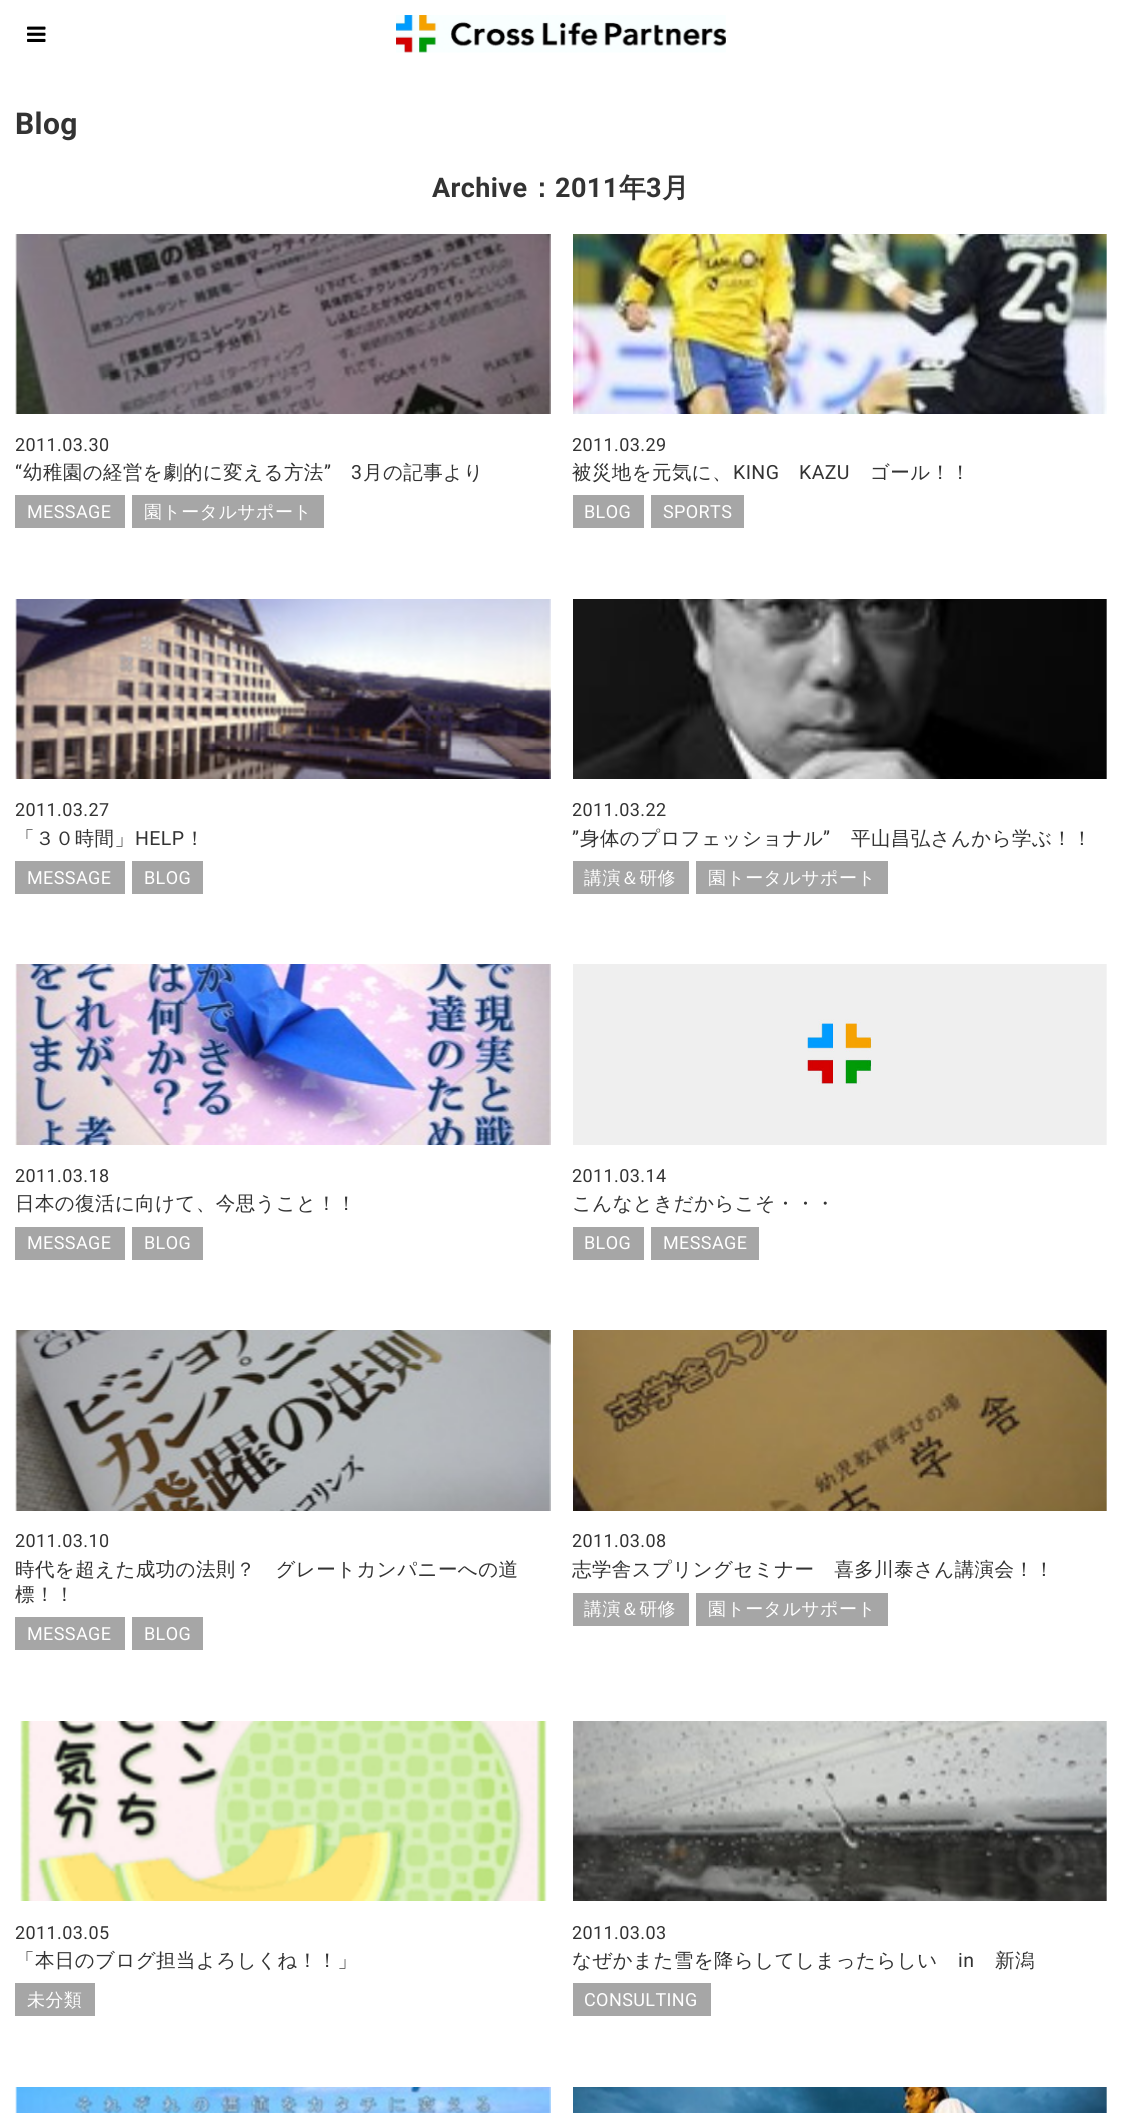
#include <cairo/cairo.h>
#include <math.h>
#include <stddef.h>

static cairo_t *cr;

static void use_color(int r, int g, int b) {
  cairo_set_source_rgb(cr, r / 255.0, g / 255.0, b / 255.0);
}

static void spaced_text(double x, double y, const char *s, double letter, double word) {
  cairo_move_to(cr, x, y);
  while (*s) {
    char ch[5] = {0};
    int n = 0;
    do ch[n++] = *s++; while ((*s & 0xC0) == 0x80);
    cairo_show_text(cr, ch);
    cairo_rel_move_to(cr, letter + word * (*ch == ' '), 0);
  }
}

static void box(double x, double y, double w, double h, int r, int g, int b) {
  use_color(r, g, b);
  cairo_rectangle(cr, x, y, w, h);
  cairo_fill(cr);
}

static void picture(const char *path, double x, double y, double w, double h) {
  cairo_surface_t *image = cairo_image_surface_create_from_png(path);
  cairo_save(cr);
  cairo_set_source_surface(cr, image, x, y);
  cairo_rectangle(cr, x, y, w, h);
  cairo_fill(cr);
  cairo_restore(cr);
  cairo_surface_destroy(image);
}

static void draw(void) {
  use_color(255, 255, 255);
  cairo_paint(cr);
  picture("img_01.png", 27, 26, 19, 16);
  picture("img_02.png", 396, 15, 330, 38);
  picture("img_03.png", 15, 234, 536, 180);
  box(15, 495, 110, 33, 166, 166, 166);
  box(132, 495, 192, 33, 166, 166, 166);
  picture("img_04.png", 573, 234, 534, 180);
  box(573, 495, 71, 33, 166, 166, 166);
  box(651, 495, 93, 33, 166, 166, 166);
  picture("img_05.png", 15, 599, 536, 180);
  box(15, 861, 110, 33, 166, 166, 166);
  box(132, 861, 71, 33, 166, 166, 166);
  picture("img_06.png", 573, 599, 534, 180);
  box(573, 861, 116, 33, 166, 166, 166);
  box(696, 861, 192, 33, 166, 166, 166);
  picture("img_07.png", 15, 964, 536, 181);
  box(15, 1227, 110, 33, 166, 166, 166);
  box(132, 1227, 71, 33, 166, 166, 166);
  picture("img_08.png", 573, 964, 534, 181);
  box(573, 1227, 71, 33, 166, 166, 166);
  box(651, 1227, 108, 33, 166, 166, 166);
  picture("img_09.png", 15, 1330, 536, 181);
  box(15, 1617, 110, 33, 166, 166, 166);
  box(132, 1617, 71, 33, 166, 166, 166);
  picture("img_10.png", 573, 1330, 534, 181);
  box(573, 1593, 116, 33, 166, 166, 166);
  box(696, 1593, 192, 33, 166, 166, 166);
  picture("img_11.png", 20, 1721, 527, 180);
  box(15, 1983, 80, 33, 166, 166, 166);
  picture("img_12.png", 573, 1721, 534, 180);
  box(573, 1983, 138, 33, 166, 166, 166);
  picture("img_13.png", 15, 2087, 536, 26);
  picture("img_14.png", 573, 2087, 534, 26);
  cairo_select_font_face(cr, "Roboto", CAIRO_FONT_SLANT_NORMAL, CAIRO_FONT_WEIGHT_BOLD);
  cairo_set_font_size(cr, 30);
  use_color(51, 51, 51);
  spaced_text(15, 134, "Blog", 0.4, 0);
  cairo_set_font_size(cr, 27);
  spaced_text(432, 197, "Archive", 0.4, 0);
  cairo_select_font_face(cr, "WenQuanYi Zen Hei", CAIRO_FONT_SLANT_NORMAL, CAIRO_FONT_WEIGHT_BOLD);
  spaced_text(528, 197, "：", 0.4, 0);
  cairo_select_font_face(cr, "Roboto", CAIRO_FONT_SLANT_NORMAL, CAIRO_FONT_WEIGHT_BOLD);
  spaced_text(555, 197, "2011", 0.4, 0);
  cairo_select_font_face(cr, "WenQuanYi Zen Hei", CAIRO_FONT_SLANT_NORMAL, CAIRO_FONT_WEIGHT_BOLD);
  spaced_text(619, 197, "年", 0.4, 0);
  cairo_select_font_face(cr, "Roboto", CAIRO_FONT_SLANT_NORMAL, CAIRO_FONT_WEIGHT_BOLD);
  spaced_text(646, 197, "3", 0.4, 0);
  cairo_select_font_face(cr, "WenQuanYi Zen Hei", CAIRO_FONT_SLANT_NORMAL, CAIRO_FONT_WEIGHT_BOLD);
  spaced_text(662, 197, "月", 0.4, 0);
  cairo_select_font_face(cr, "Roboto", CAIRO_FONT_SLANT_NORMAL, CAIRO_FONT_WEIGHT_NORMAL);
  cairo_set_font_size(cr, 18);
  spaced_text(15, 451, "2011.03.30", 0.4, 0);
  cairo_set_font_size(cr, 19.5);
  spaced_text(15, 479, "“", 0.4, 0);
  cairo_select_font_face(cr, "WenQuanYi Zen Hei Medium", CAIRO_FONT_SLANT_NORMAL, CAIRO_FONT_WEIGHT_NORMAL);
  spaced_text(23, 479, "幼稚園の経営を劇的に変える方法", 0.4, 0);
  cairo_select_font_face(cr, "Roboto", CAIRO_FONT_SLANT_NORMAL, CAIRO_FONT_WEIGHT_NORMAL);
  spaced_text(324, 479, "”", 0.4, 0);
  spaced_text(351, 479, "3", 0.4, 0);
  cairo_select_font_face(cr, "WenQuanYi Zen Hei Medium", CAIRO_FONT_SLANT_NORMAL, CAIRO_FONT_WEIGHT_NORMAL);
  spaced_text(363, 479, "月の記事より", 0.4, 0);
  cairo_select_font_face(cr, "Roboto", CAIRO_FONT_SLANT_NORMAL, CAIRO_FONT_WEIGHT_NORMAL);
  cairo_set_font_size(cr, 18);
  use_color(255, 255, 255);
  spaced_text(27, 518, "MESSAGE", 0.4, 0);
  cairo_select_font_face(cr, "WenQuanYi Zen Hei Medium", CAIRO_FONT_SLANT_NORMAL, CAIRO_FONT_WEIGHT_NORMAL);
  spaced_text(144, 518, "園トータルサポート", 0.4, 0);
  cairo_select_font_face(cr, "Roboto", CAIRO_FONT_SLANT_NORMAL, CAIRO_FONT_WEIGHT_NORMAL);
  use_color(51, 51, 51);
  spaced_text(572, 451, "2011.03.29", 0.4, 0);
  cairo_select_font_face(cr, "WenQuanYi Zen Hei Medium", CAIRO_FONT_SLANT_NORMAL, CAIRO_FONT_WEIGHT_NORMAL);
  cairo_set_font_size(cr, 19.5);
  spaced_text(572, 479, "被災地を元気に、", 0.4, 0);
  cairo_select_font_face(cr, "Roboto", CAIRO_FONT_SLANT_NORMAL, CAIRO_FONT_WEIGHT_NORMAL);
  spaced_text(733, 479, "KING", 0.4, 0);
  spaced_text(799, 479, "KAZU", 0.4, 0);
  cairo_select_font_face(cr, "WenQuanYi Zen Hei Medium", CAIRO_FONT_SLANT_NORMAL, CAIRO_FONT_WEIGHT_NORMAL);
  spaced_text(870, 479, "ゴール！！", 0.4, 0);
  cairo_select_font_face(cr, "Roboto", CAIRO_FONT_SLANT_NORMAL, CAIRO_FONT_WEIGHT_NORMAL);
  cairo_set_font_size(cr, 18);
  use_color(255, 255, 255);
  spaced_text(584, 518, "BLOG", 0.4, 0);
  spaced_text(663, 518, "SPORTS", 0.4, 0);
  use_color(51, 51, 51);
  spaced_text(15, 816, "2011.03.27", 0.4, 0);
  cairo_select_font_face(cr, "WenQuanYi Zen Hei Medium", CAIRO_FONT_SLANT_NORMAL, CAIRO_FONT_WEIGHT_NORMAL);
  cairo_set_font_size(cr, 19.5);
  spaced_text(15, 845, "「３０時間」", 0.4, 0);
  cairo_select_font_face(cr, "Roboto", CAIRO_FONT_SLANT_NORMAL, CAIRO_FONT_WEIGHT_NORMAL);
  spaced_text(135, 845, "HELP", 0.4, 0);
  cairo_select_font_face(cr, "WenQuanYi Zen Hei Medium", CAIRO_FONT_SLANT_NORMAL, CAIRO_FONT_WEIGHT_NORMAL);
  spaced_text(185, 845, "！", 0.4, 0);
  cairo_select_font_face(cr, "Roboto", CAIRO_FONT_SLANT_NORMAL, CAIRO_FONT_WEIGHT_NORMAL);
  cairo_set_font_size(cr, 18);
  use_color(255, 255, 255);
  spaced_text(27, 884, "MESSAGE", 0.4, 0);
  spaced_text(144, 884, "BLOG", 0.4, 0);
  use_color(51, 51, 51);
  spaced_text(572, 816, "2011.03.22", 0.4, 0);
  cairo_set_font_size(cr, 19.5);
  spaced_text(572, 845, "”", 0.4, 0);
  cairo_select_font_face(cr, "WenQuanYi Zen Hei Medium", CAIRO_FONT_SLANT_NORMAL, CAIRO_FONT_WEIGHT_NORMAL);
  spaced_text(580, 845, "身体のプロフェッショナル", 0.4, 0);
  cairo_select_font_face(cr, "Roboto", CAIRO_FONT_SLANT_NORMAL, CAIRO_FONT_WEIGHT_NORMAL);
  spaced_text(823, 845, "”", 0.4, 0);
  cairo_select_font_face(cr, "WenQuanYi Zen Hei Medium", CAIRO_FONT_SLANT_NORMAL, CAIRO_FONT_WEIGHT_NORMAL);
  spaced_text(851, 845, "平山昌弘さんから学ぶ！！", 0.4, 0);
  cairo_set_font_size(cr, 18);
  use_color(255, 255, 255);
  spaced_text(584, 884, "講演＆研修", 0.4, 0);
  spaced_text(708, 884, "園トータルサポート", 0.4, 0);
  cairo_select_font_face(cr, "Roboto", CAIRO_FONT_SLANT_NORMAL, CAIRO_FONT_WEIGHT_NORMAL);
  use_color(51, 51, 51);
  spaced_text(15, 1182, "2011.03.18", 0.4, 0);
  cairo_select_font_face(cr, "WenQuanYi Zen Hei Medium", CAIRO_FONT_SLANT_NORMAL, CAIRO_FONT_WEIGHT_NORMAL);
  cairo_set_font_size(cr, 19.5);
  spaced_text(15, 1210, "日本の復活に向けて、今思うこと！！", 0.4, 0);
  cairo_select_font_face(cr, "Roboto", CAIRO_FONT_SLANT_NORMAL, CAIRO_FONT_WEIGHT_NORMAL);
  cairo_set_font_size(cr, 18);
  use_color(255, 255, 255);
  spaced_text(27, 1249, "MESSAGE", 0.4, 0);
  spaced_text(144, 1249, "BLOG", 0.4, 0);
  use_color(51, 51, 51);
  spaced_text(572, 1182, "2011.03.14", 0.4, 0);
  cairo_select_font_face(cr, "WenQuanYi Zen Hei Medium", CAIRO_FONT_SLANT_NORMAL, CAIRO_FONT_WEIGHT_NORMAL);
  cairo_set_font_size(cr, 19.5);
  spaced_text(572, 1210, "こんなときだからこそ・・・", 0.4, 0);
  cairo_select_font_face(cr, "Roboto", CAIRO_FONT_SLANT_NORMAL, CAIRO_FONT_WEIGHT_NORMAL);
  cairo_set_font_size(cr, 18);
  use_color(255, 255, 255);
  spaced_text(584, 1249, "BLOG", 0.4, 0);
  spaced_text(663, 1249, "MESSAGE", 0.4, 0);
  use_color(51, 51, 51);
  spaced_text(15, 1547, "2011.03.10", 0.4, 0);
  cairo_select_font_face(cr, "WenQuanYi Zen Hei Medium", CAIRO_FONT_SLANT_NORMAL, CAIRO_FONT_WEIGHT_NORMAL);
  cairo_set_font_size(cr, 19.5);
  spaced_text(15, 1576, "時代を超えた成功の法則？　グレートカンパニーへの道", 0.4, 0);
  spaced_text(15, 1601, "標！！", 0.4, 0);
  cairo_select_font_face(cr, "Roboto", CAIRO_FONT_SLANT_NORMAL, CAIRO_FONT_WEIGHT_NORMAL);
  cairo_set_font_size(cr, 18);
  use_color(255, 255, 255);
  spaced_text(27, 1640, "MESSAGE", 0.4, 0);
  spaced_text(144, 1640, "BLOG", 0.4, 0);
  use_color(51, 51, 51);
  spaced_text(572, 1547, "2011.03.08", 0.4, 0);
  cairo_select_font_face(cr, "WenQuanYi Zen Hei Medium", CAIRO_FONT_SLANT_NORMAL, CAIRO_FONT_WEIGHT_NORMAL);
  cairo_set_font_size(cr, 19.5);
  spaced_text(572, 1576, "志学舎スプリングセミナー　喜多川泰さん講演会！！", 0.4, 0);
  cairo_set_font_size(cr, 18);
  use_color(255, 255, 255);
  spaced_text(584, 1615, "講演＆研修", 0.4, 0);
  spaced_text(708, 1615, "園トータルサポート", 0.4, 0);
  cairo_select_font_face(cr, "Roboto", CAIRO_FONT_SLANT_NORMAL, CAIRO_FONT_WEIGHT_NORMAL);
  use_color(51, 51, 51);
  spaced_text(15, 1939, "2011.03.05", 0.4, 0);
  cairo_select_font_face(cr, "WenQuanYi Zen Hei Medium", CAIRO_FONT_SLANT_NORMAL, CAIRO_FONT_WEIGHT_NORMAL);
  cairo_set_font_size(cr, 19.5);
  spaced_text(15, 1967, "「本日のブログ担当よろしくね！！」", 0.4, 0);
  cairo_set_font_size(cr, 18);
  use_color(255, 255, 255);
  spaced_text(27, 2006, "未分類", 0.4, 0);
  cairo_select_font_face(cr, "Roboto", CAIRO_FONT_SLANT_NORMAL, CAIRO_FONT_WEIGHT_NORMAL);
  use_color(51, 51, 51);
  spaced_text(572, 1939, "2011.03.03", 0.4, 0);
  cairo_select_font_face(cr, "WenQuanYi Zen Hei Medium", CAIRO_FONT_SLANT_NORMAL, CAIRO_FONT_WEIGHT_NORMAL);
  cairo_set_font_size(cr, 19.5);
  spaced_text(572, 1967, "なぜかまた雪を降らしてしまったらしい", 0.4, 0);
  cairo_select_font_face(cr, "Roboto", CAIRO_FONT_SLANT_NORMAL, CAIRO_FONT_WEIGHT_NORMAL);
  spaced_text(958, 1967, "in", 0.4, 0);
  cairo_select_font_face(cr, "WenQuanYi Zen Hei Medium", CAIRO_FONT_SLANT_NORMAL, CAIRO_FONT_WEIGHT_NORMAL);
  spaced_text(995, 1967, "新潟", 0.4, 0);
  cairo_select_font_face(cr, "Roboto", CAIRO_FONT_SLANT_NORMAL, CAIRO_FONT_WEIGHT_NORMAL);
  cairo_set_font_size(cr, 18);
  use_color(255, 255, 255);
  spaced_text(584, 2006, "CONSULTING", 0.4, 0);
}

int main(void) {
  cairo_surface_t *surface = cairo_image_surface_create(CAIRO_FORMAT_RGB24, 1122, 2113);
  cr = cairo_create(surface);
  cairo_font_options_t *options = cairo_font_options_create();
  cairo_font_options_set_hint_metrics(options, CAIRO_HINT_METRICS_OFF);
  cairo_font_options_set_hint_style(options, CAIRO_HINT_STYLE_NONE);
  cairo_set_font_options(cr, options);
  cairo_set_miter_limit(cr, 4);
  draw();
  cairo_surface_write_to_png(surface, "out.png");
  cairo_font_options_destroy(options);
  cairo_destroy(cr);
  cairo_surface_destroy(surface);
  return 0;
}
